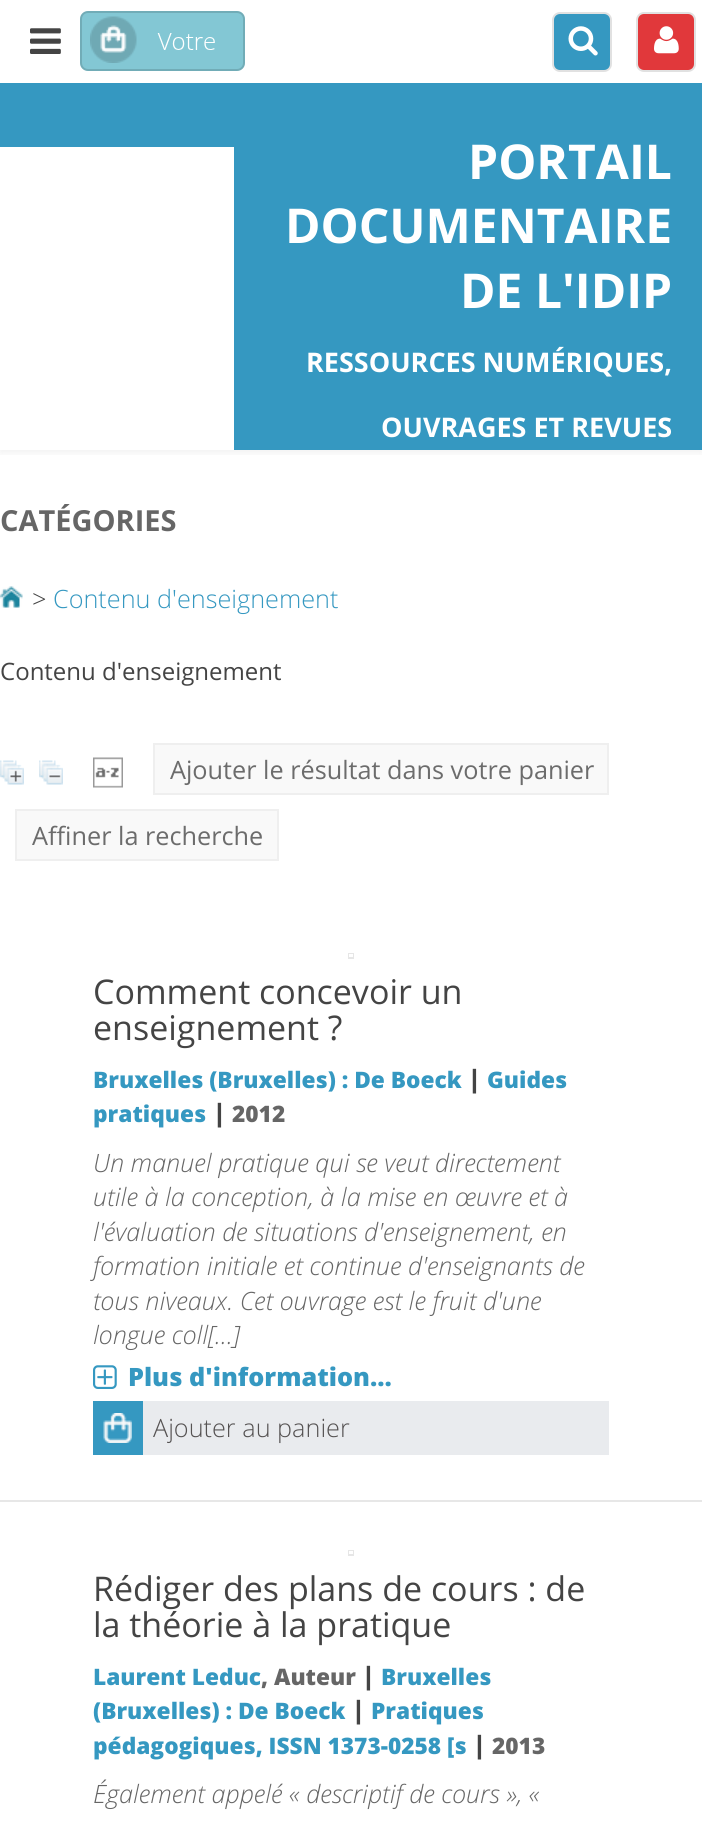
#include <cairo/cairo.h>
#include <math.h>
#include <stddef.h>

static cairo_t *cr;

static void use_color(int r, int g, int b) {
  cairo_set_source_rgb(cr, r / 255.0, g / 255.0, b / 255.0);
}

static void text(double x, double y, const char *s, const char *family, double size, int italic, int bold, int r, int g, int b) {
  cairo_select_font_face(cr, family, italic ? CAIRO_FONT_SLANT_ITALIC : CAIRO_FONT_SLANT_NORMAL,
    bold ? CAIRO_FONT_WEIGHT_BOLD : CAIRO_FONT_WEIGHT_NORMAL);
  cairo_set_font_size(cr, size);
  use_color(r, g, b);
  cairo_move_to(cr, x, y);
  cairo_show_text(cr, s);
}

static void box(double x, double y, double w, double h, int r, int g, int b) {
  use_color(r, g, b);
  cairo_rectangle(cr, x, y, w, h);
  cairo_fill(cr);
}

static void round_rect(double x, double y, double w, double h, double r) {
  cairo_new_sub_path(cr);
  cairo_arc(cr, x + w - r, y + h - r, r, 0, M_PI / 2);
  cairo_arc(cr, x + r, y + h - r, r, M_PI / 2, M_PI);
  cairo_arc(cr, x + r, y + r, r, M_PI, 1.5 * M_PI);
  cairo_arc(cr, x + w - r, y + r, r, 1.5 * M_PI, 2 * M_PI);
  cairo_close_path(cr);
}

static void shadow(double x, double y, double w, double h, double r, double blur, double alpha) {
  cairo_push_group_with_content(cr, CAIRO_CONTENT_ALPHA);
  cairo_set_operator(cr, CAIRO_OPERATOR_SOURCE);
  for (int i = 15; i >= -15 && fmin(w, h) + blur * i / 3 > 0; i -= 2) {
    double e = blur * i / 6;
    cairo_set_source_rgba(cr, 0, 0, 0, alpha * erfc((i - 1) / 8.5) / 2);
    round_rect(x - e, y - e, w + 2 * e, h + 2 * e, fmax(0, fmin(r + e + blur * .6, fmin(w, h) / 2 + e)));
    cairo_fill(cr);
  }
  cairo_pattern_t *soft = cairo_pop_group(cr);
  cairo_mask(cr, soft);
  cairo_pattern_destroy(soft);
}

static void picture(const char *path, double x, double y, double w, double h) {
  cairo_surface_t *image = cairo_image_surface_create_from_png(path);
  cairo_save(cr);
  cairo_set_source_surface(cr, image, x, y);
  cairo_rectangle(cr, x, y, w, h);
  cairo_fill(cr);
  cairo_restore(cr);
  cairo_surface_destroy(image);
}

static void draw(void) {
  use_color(255, 255, 255);
  cairo_paint(cr);
  cairo_save(cr);
  cairo_rectangle(cr, 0, 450, 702, 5);
  cairo_clip(cr);
  use_color(0, 0, 0);
  shadow(0, 3, 702, 450, 0, 4.5, 0.06);
  cairo_restore(cr);
  use_color(131, 199, 212);
  round_rect(80, 11, 165, 60, 8);
  cairo_fill(cr);
  round_rect(81, 12, 163, 58, 7);
  cairo_set_source_rgba(cr, 0, 0, 0, 0.14);
  cairo_stroke(cr);
  picture("img_01.png", 90, 16, 125, 47);
  picture("img_02.png", 30, 28, 31, 26);
  use_color(53, 152, 193);
  round_rect(553, 13, 58, 58, 7);
  cairo_fill_preserve(cr);
  use_color(225, 225, 225);
  cairo_stroke(cr);
  picture("img_03.png", 568, 26, 30, 30);
  use_color(225, 56, 59);
  round_rect(637, 13, 58, 58, 7);
  cairo_fill_preserve(cr);
  use_color(225, 225, 225);
  cairo_stroke(cr);
  picture("img_04.png", 654, 26, 25, 28);
  box(0, 83, 234, 64, 53, 152, 193);
  box(234, 83, 468, 367, 53, 152, 193);
  picture("img_05.png", 0, 586, 23, 22);
  picture("img_06.png", 0, 760, 24, 25);
  picture("img_07.png", 39, 760, 24, 25);
  picture("img_08.png", 93, 757, 30, 31);
  use_color(249, 249, 249);
  cairo_rectangle(cr, 154, 744, 454, 50);
  cairo_fill_preserve(cr);
  use_color(239, 239, 239);
  cairo_stroke(cr);
  use_color(249, 249, 249);
  cairo_rectangle(cr, 16, 810, 262, 50);
  cairo_fill_preserve(cr);
  use_color(239, 239, 239);
  cairo_stroke(cr);
  box(0, 1500, 702, 2, 231, 231, 231);
  cairo_rectangle(cr, 349, 954, 4, 4);
  use_color(230, 230, 230);
  cairo_stroke(cr);
  box(349, 954, 4, 3, 255, 255, 255);
  picture("img_09.png", 93, 1365, 24, 24);
  box(93, 1401, 50, 54, 53, 152, 193);
  picture("img_10.png", 103, 1413, 29, 30);
  box(143, 1401, 466, 54, 233, 235, 238);
  cairo_rectangle(cr, 349, 1551, 4, 4);
  use_color(230, 230, 230);
  cairo_stroke(cr);
  box(349, 1551, 4, 3, 255, 255, 255);
  text(468, 179, "PORTAIL", "Open Sans", 48, 0, 1, 255, 255, 255);
  text(285, 243, "DOCUMENTAIRE", "Open Sans", 48, 0, 1, 255, 255, 255);
  text(460, 308, "DE L'IDIP", "Open Sans", 48, 0, 1, 255, 255, 255);
  text(306, 372, "RESSOURCES NUMÉRIQUES,", "Open Sans", 27, 0, 1, 255, 255, 255);
  text(381, 437, "OUVRAGES ET REVUES", "Open Sans", 27, 0, 1, 255, 255, 255);
  text(0, 531, "CATÉGORIES", "Open Sans", 29, 0, 1, 102, 102, 102);
  text(32, 608, ">", "Open Sans Light", 25.25, 0, 0, 68, 68, 68);
  text(53, 608, "Contenu d'enseignement", "Open Sans Light", 25.25, 0, 0, 53, 152, 193);
  text(0, 680, "Contenu d'enseignement", "Open Sans", 24, 0, 0, 68, 68, 68);
  text(170, 779, "Ajouter le résultat dans votre panier", "Open Sans", 25.25, 0, 0, 108, 108, 108);
  text(32, 845, "Affiner la recherche", "Open Sans", 25.25, 0, 0, 108, 108, 108);
  text(93, 1004, "Comment concevoir un", "Open Sans", 34, 0, 0, 68, 68, 68);
  text(93, 1040, "enseignement ?", "Open Sans", 34, 0, 0, 68, 68, 68);
  text(93, 1088, "Bruxelles (Bruxelles) : De Boeck", "Open Sans ExtraBold", 22.7, 0, 0, 53, 152, 193);
  text(468, 1088, "|", "Open Sans ExtraBold", 25.25, 0, 0, 68, 68, 68);
  text(487, 1088, "Guides", "Open Sans ExtraBold", 22.7, 0, 0, 53, 152, 193);
  text(93, 1122, "pratiques", "Open Sans ExtraBold", 22.7, 0, 0, 53, 152, 193);
  text(213, 1122, "|", "Open Sans ExtraBold", 25.25, 0, 0, 68, 68, 68);
  text(232, 1122, "2012", "Open Sans ExtraBold", 22.7, 0, 0, 102, 102, 102);
  text(93, 1172, "Un manuel pratique qui se veut directement", "Open Sans Light", 25.25, 1, 0, 102, 102, 102);
  text(93, 1206, "utile à la conception, à la mise en œuvre et à", "Open Sans Light", 25.25, 1, 0, 102, 102, 102);
  text(93, 1241, "l'évaluation de situations d'enseignement, en", "Open Sans Light", 25.25, 1, 0, 102, 102, 102);
  text(93, 1275, "formation initiale et continue d'enseignants de", "Open Sans Light", 25.25, 1, 0, 102, 102, 102);
  text(93, 1310, "tous niveaux. Cet ouvrage est le fruit d'une", "Open Sans Light", 25.25, 1, 0, 102, 102, 102);
  text(93, 1344, "longue coll[...]", "Open Sans Light", 25.25, 1, 0, 102, 102, 102);
  text(128, 1386, "Plus d'information...", "Open Sans ExtraBold", 25.25, 0, 0, 53, 152, 193);
  text(153, 1437, "Ajouter au panier", "Open Sans Light", 25.25, 0, 0, 85, 82, 82);
  text(93, 1601, "Rédiger des plans de cours : de", "Open Sans", 34, 0, 0, 68, 68, 68);
  text(93, 1637, "la théorie à la pratique", "Open Sans", 34, 0, 0, 68, 68, 68);
  text(93, 1685, "Laurent Leduc", "Open Sans ExtraBold", 22.7, 0, 0, 53, 152, 193);
  text(261, 1685, ", Auteur", "Open Sans ExtraBold", 22.7, 0, 0, 102, 102, 102);
  text(362, 1685, "|", "Open Sans ExtraBold", 25.25, 0, 0, 68, 68, 68);
  text(381, 1685, "Bruxelles", "Open Sans ExtraBold", 22.7, 0, 0, 53, 152, 193);
  text(93, 1719, "(Bruxelles) : De Boeck", "Open Sans ExtraBold", 22.7, 0, 0, 53, 152, 193);
  text(352, 1719, "|", "Open Sans ExtraBold", 25.25, 0, 0, 68, 68, 68);
  text(371, 1719, "Pratiques", "Open Sans ExtraBold", 22.7, 0, 0, 53, 152, 193);
  text(93, 1754, "pédagogiques, ISSN 1373-0258 [s", "Open Sans ExtraBold", 22.7, 0, 0, 53, 152, 193);
  text(473, 1754, "|", "Open Sans ExtraBold", 25.25, 0, 0, 68, 68, 68);
  text(492, 1754, "2013", "Open Sans ExtraBold", 22.7, 0, 0, 102, 102, 102);
  text(93, 1803, "Également appelé « descriptif de cours », «", "Open Sans Light", 25.25, 1, 0, 102, 102, 102);
}

int main(void) {
  cairo_surface_t *surface = cairo_image_surface_create(CAIRO_FORMAT_RGB24, 702, 1833);
  cr = cairo_create(surface);
  cairo_font_options_t *options = cairo_font_options_create();
  cairo_font_options_set_hint_metrics(options, CAIRO_HINT_METRICS_OFF);
  cairo_font_options_set_hint_style(options, CAIRO_HINT_STYLE_NONE);
  cairo_set_font_options(cr, options);
  cairo_set_miter_limit(cr, 4);
  draw();
  cairo_surface_write_to_png(surface, "out.png");
  cairo_font_options_destroy(options);
  cairo_destroy(cr);
  cairo_surface_destroy(surface);
  return 0;
}
